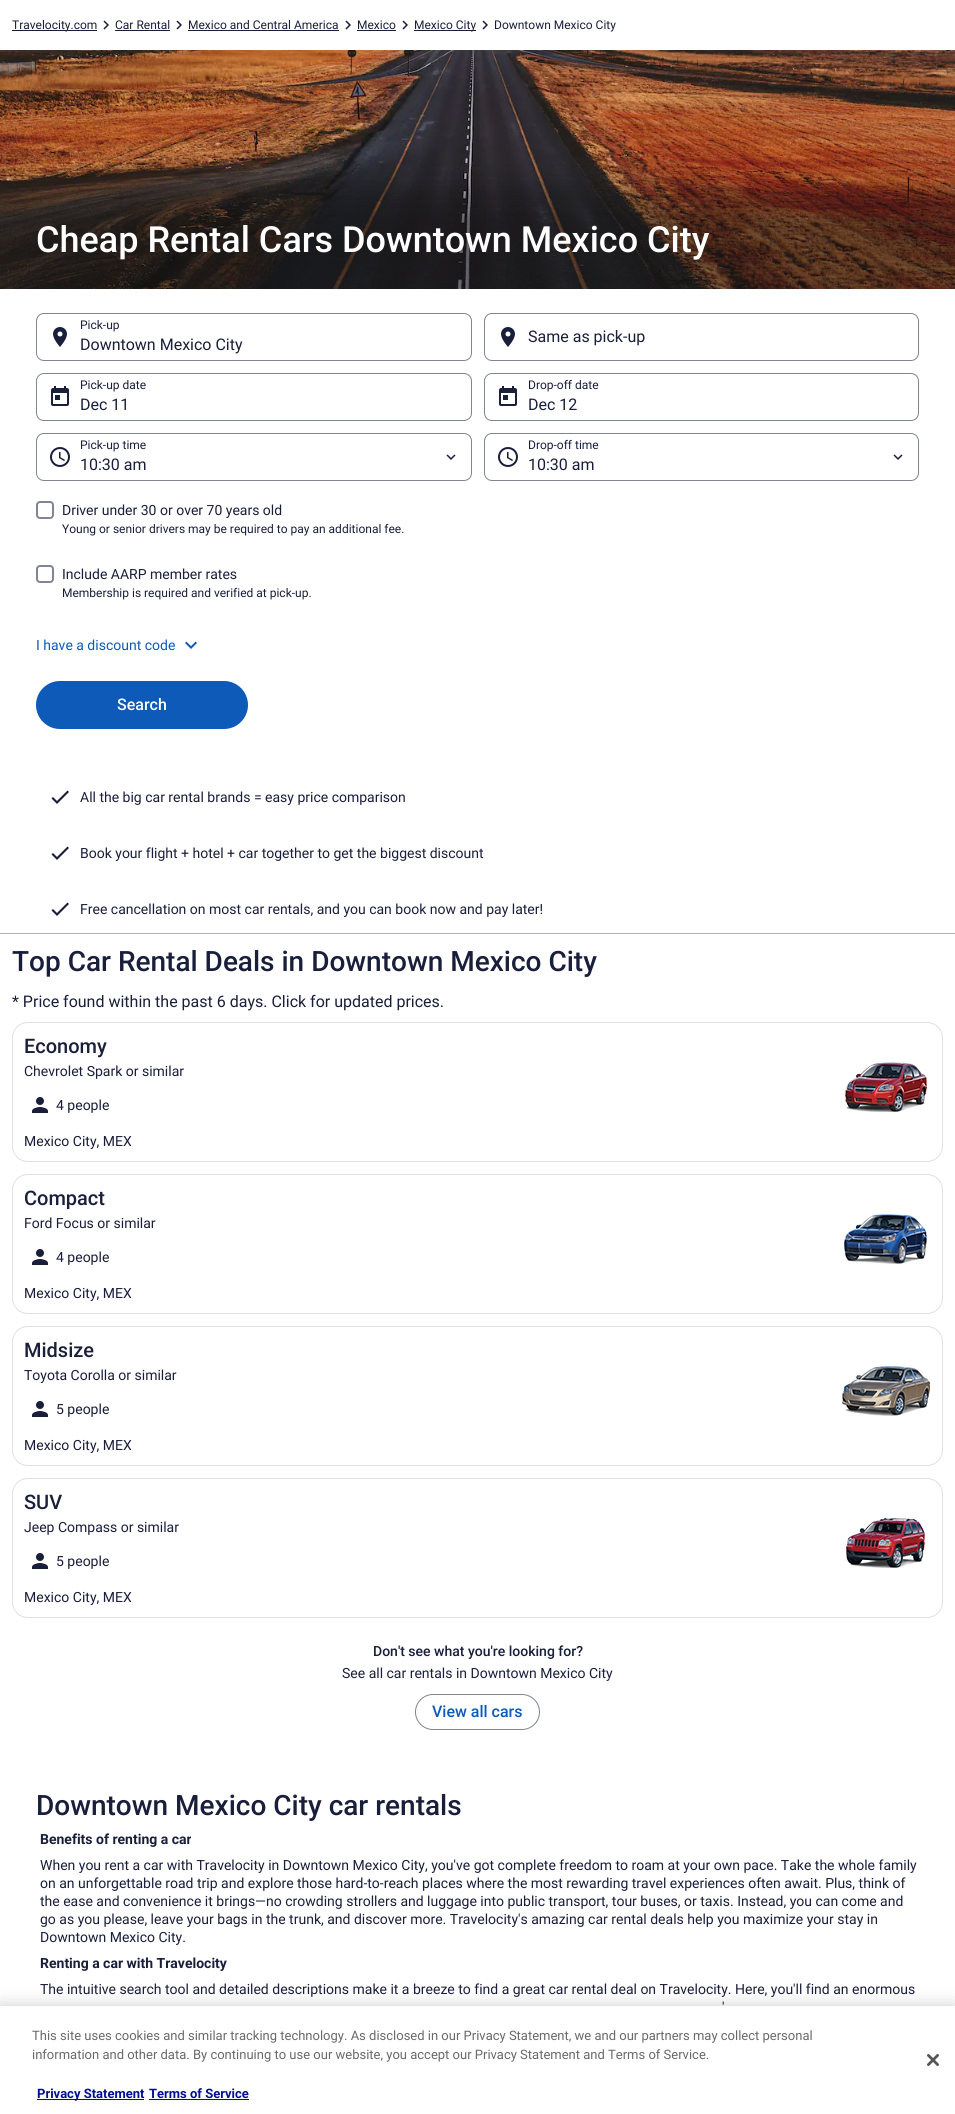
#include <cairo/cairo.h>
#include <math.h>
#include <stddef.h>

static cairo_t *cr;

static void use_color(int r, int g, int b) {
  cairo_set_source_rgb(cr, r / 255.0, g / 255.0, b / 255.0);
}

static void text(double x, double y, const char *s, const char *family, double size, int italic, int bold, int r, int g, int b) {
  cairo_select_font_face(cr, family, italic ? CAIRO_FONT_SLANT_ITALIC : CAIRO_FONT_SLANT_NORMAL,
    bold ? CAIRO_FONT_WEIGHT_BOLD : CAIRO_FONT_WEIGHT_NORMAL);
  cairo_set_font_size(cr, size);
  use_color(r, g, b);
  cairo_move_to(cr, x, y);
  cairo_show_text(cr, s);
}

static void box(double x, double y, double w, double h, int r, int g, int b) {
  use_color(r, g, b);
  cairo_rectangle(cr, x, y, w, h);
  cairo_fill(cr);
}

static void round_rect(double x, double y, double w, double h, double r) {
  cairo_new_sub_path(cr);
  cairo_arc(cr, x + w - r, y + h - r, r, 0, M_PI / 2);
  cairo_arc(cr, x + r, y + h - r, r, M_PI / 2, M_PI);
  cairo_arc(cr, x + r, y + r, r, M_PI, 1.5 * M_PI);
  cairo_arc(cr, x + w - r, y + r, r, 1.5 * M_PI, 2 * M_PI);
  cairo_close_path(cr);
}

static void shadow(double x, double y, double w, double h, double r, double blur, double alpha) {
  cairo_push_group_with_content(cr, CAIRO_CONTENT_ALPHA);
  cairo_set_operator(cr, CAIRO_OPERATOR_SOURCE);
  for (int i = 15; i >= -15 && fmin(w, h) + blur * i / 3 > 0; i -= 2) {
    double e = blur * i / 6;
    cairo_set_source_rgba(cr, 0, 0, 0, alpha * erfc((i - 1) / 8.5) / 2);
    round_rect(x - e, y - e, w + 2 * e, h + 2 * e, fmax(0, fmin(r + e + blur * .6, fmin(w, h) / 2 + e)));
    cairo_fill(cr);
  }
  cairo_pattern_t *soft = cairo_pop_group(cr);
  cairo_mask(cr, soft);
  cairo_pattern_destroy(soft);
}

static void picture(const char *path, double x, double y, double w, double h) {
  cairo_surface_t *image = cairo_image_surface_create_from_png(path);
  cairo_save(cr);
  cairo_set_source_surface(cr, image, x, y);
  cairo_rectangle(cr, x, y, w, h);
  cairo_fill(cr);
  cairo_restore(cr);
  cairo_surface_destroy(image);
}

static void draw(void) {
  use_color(255, 255, 255);
  cairo_paint(cr);
  box(0, 933, 955, 1, 177, 179, 189);
  box(12, 30, 85, 1, 25, 30, 59);
  picture("img_01.png", 103, 20, 6, 10);
  box(115, 30, 55, 1, 25, 30, 59);
  picture("img_01.png", 176, 20, 6, 10);
  box(188, 30, 151, 1, 25, 30, 59);
  picture("img_01.png", 345, 20, 6, 10);
  box(357, 30, 39, 1, 25, 30, 59);
  picture("img_01.png", 402, 20, 6, 10);
  box(414, 30, 62, 1, 25, 30, 59);
  picture("img_01.png", 482, 20, 6, 10);
  picture("img_02.png", 0, 50, 955, 239);
  round_rect(36.5, 313.5, 435, 47, 7.5);
  use_color(129, 132, 148);
  cairo_set_line_width(cr, 1);
  cairo_stroke(cr);
  picture("img_03.png", 53, 327, 14, 20);
  round_rect(484.5, 313.5, 434, 47, 7.5);
  cairo_stroke(cr);
  picture("img_03.png", 501, 327, 14, 20);
  round_rect(36.5, 373.5, 435, 47, 7.5);
  cairo_stroke(cr);
  picture("img_04.png", 51, 386, 18, 20);
  round_rect(484.5, 373.5, 434, 47, 7.5);
  cairo_stroke(cr);
  picture("img_04.png", 499, 386, 18, 20);
  round_rect(36.5, 433.5, 435, 47, 7.5);
  cairo_stroke(cr);
  picture("img_05.png", 50, 447, 20, 20);
  picture("img_06.png", 446, 454, 10, 6);
  round_rect(484.5, 433.5, 434, 47, 7.5);
  cairo_stroke(cr);
  picture("img_05.png", 498, 447, 20, 20);
  picture("img_06.png", 893, 454, 10, 6);
  round_rect(37, 502, 16, 16, 3);
  cairo_set_line_width(cr, 2);
  cairo_stroke(cr);
  round_rect(37, 566, 16, 16, 3);
  cairo_stroke(cr);
  picture("img_07.png", 185, 641, 12, 8);
  use_color(13, 90, 185);
  round_rect(36, 681, 212, 48, 24);
  cairo_fill(cr);
  use_color(25, 30, 59);
  cairo_new_path(cr);
  cairo_move_to(cr, 57, 801);
  cairo_line_to(cr, 53, 797);
  cairo_line_to(cr, 51.5, 798.5);
  cairo_line_to(cr, 57, 804);
  cairo_line_to(cr, 69, 792);
  cairo_line_to(cr, 67.5, 790.5);
  cairo_close_path(cr);
  cairo_fill(cr);
  cairo_new_path(cr);
  cairo_move_to(cr, 57, 857);
  cairo_line_to(cr, 53, 853);
  cairo_line_to(cr, 51.5, 854.5);
  cairo_line_to(cr, 57, 860);
  cairo_line_to(cr, 69, 848);
  cairo_line_to(cr, 67.5, 846.5);
  cairo_close_path(cr);
  cairo_fill(cr);
  cairo_new_path(cr);
  cairo_move_to(cr, 57, 913);
  cairo_line_to(cr, 53, 909);
  cairo_line_to(cr, 51.5, 910.5);
  cairo_line_to(cr, 57, 916);
  cairo_line_to(cr, 69, 904);
  cairo_line_to(cr, 67.5, 902.5);
  cairo_close_path(cr);
  cairo_fill(cr);
  picture("img_08.png", 32, 1097, 16, 16);
  picture("img_09.png", 845, 1062, 82, 50);
  round_rect(12.5, 1022.5, 930, 139, 15.5);
  use_color(223, 224, 228);
  cairo_set_line_width(cr, 1);
  cairo_stroke(cr);
  picture("img_08.png", 32, 1249, 16, 16);
  picture("img_10.png", 844, 1214, 83, 50);
  round_rect(12.5, 1174.5, 930, 139, 15.5);
  cairo_stroke(cr);
  picture("img_08.png", 32, 1401, 16, 16);
  picture("img_11.png", 842, 1366, 88, 50);
  round_rect(12.5, 1326.5, 930, 139, 15.5);
  cairo_stroke(cr);
  picture("img_08.png", 32, 1553, 16, 16);
  picture("img_12.png", 846, 1518, 79, 50);
  round_rect(12.5, 1478.5, 930, 139, 15.5);
  cairo_stroke(cr);
  round_rect(415.5, 1694.5, 124, 35, 17.5);
  use_color(129, 132, 148);
  cairo_stroke(cr);
  use_color(0, 0, 0);
  shadow(0, 2006, 955, 108, 0, 9, 0.2);
  box(0, 2006, 955, 108, 255, 255, 255);
  box(37, 2099, 107, 1, 0, 15, 148);
  box(149, 2099, 100, 1, 0, 15, 148);
  picture("img_13.png", 927, 2054, 12, 12);
  text(12, 29, "Travelocity.com", "Roboto", 12, 0, 0, 25, 30, 59);
  text(115, 29, "Car Rental", "Roboto", 12, 0, 0, 25, 30, 59);
  text(188, 29, "Mexico and Central America", "Roboto", 12, 0, 0, 25, 30, 59);
  text(357, 29, "Mexico", "Roboto", 12, 0, 0, 25, 30, 59);
  text(414, 29, "Mexico City", "Roboto", 12, 0, 0, 25, 30, 59);
  text(494, 29, "Downtown Mexico City", "Roboto", 12, 0, 0, 25, 30, 59);
  text(36, 252, "Cheap Rental Cars Downtown Mexico City", "Roboto Medium", 36, 0, 0, 255, 255, 255);
  text(80, 329, "Pick-up", "Roboto", 12, 0, 0, 25, 30, 59);
  text(80, 350, "Downtown Mexico City", "Roboto", 16, 0, 0, 25, 30, 59);
  text(528, 342, "Same as pick-up", "Roboto", 16, 0, 0, 25, 30, 59);
  text(80, 389, "Pick-up date", "Roboto", 12, 0, 0, 25, 30, 59);
  text(80, 410, "Dec 11", "Roboto", 16, 0, 0, 25, 30, 59);
  text(528, 389, "Drop-off date", "Roboto", 12, 0, 0, 25, 30, 59);
  text(528, 410, "Dec 12", "Roboto", 16, 0, 0, 25, 30, 59);
  text(80, 449, "Pick-up time", "Roboto", 12, 0, 0, 25, 30, 59);
  text(80, 470, "10:30 am", "Roboto", 16, 0, 0, 25, 30, 59);
  text(528, 449, "Drop-off time", "Roboto", 12, 0, 0, 25, 30, 59);
  text(528, 470, "10:30 am", "Roboto", 16, 0, 0, 25, 30, 59);
  text(62, 515, "Driver under 30 or over 70 years old", "Roboto", 14, 0, 0, 25, 30, 59);
  text(62, 533, "Young or senior drivers may be required to pay an additional fee.", "Roboto", 12, 0, 0, 25, 30, 59);
  text(62, 579, "Include AARP member rates", "Roboto", 14, 0, 0, 25, 30, 59);
  text(62, 597, "Membership is required and verified at pick-up.", "Roboto", 12, 0, 0, 25, 30, 59);
  text(36, 650, "I have a discount code", "Roboto", 14, 0, 0, 13, 90, 185);
  text(117, 710, "Search", "Roboto Medium", 16, 0, 0, 255, 255, 255);
  text(80, 802, "All the big car rental brands = easy price comparison", "Roboto", 14, 0, 0, 25, 30, 59);
  text(80, 858, "Book your flight + hotel + car together to get the biggest discount", "Roboto", 14, 0, 0, 25, 30, 59);
  text(80, 914, "Free cancellation on most car rentals, and you can book now and pay later!", "Roboto", 14, 0, 0, 25, 30, 59);
  text(12, 971, "Top Car Rental Deals in Downtown Mexico City", "Roboto Medium", 28, 0, 0, 25, 30, 59);
  text(12, 1007, "* Price found within the past 6 days. Click for updated prices.", "Roboto", 16, 0, 0, 25, 30, 59);
  text(24, 1053, "Economy", "Roboto Medium", 20, 0, 0, 25, 30, 59);
  text(24, 1076, "Chevrolet Spark or similar", "Roboto", 14, 0, 0, 25, 30, 59);
  text(56, 1110, "4 people", "Roboto", 14, 0, 0, 25, 30, 59);
  text(24, 1146, "Mexico City, MEX", "Roboto", 14, 0, 0, 25, 30, 59);
  text(24, 1205, "Compact", "Roboto Medium", 20, 0, 0, 25, 30, 59);
  text(24, 1228, "Ford Focus or similar", "Roboto", 14, 0, 0, 25, 30, 59);
  text(56, 1262, "4 people", "Roboto", 14, 0, 0, 25, 30, 59);
  text(24, 1298, "Mexico City, MEX", "Roboto", 14, 0, 0, 25, 30, 59);
  text(24, 1357, "Midsize", "Roboto Medium", 20, 0, 0, 25, 30, 59);
  text(24, 1380, "Toyota Corolla or similar", "Roboto", 14, 0, 0, 25, 30, 59);
  text(56, 1414, "5 people", "Roboto", 14, 0, 0, 25, 30, 59);
  text(24, 1450, "Mexico City, MEX", "Roboto", 14, 0, 0, 25, 30, 59);
  text(24, 1509, "SUV", "Roboto Medium", 20, 0, 0, 25, 30, 59);
  text(24, 1532, "Jeep Compass or similar", "Roboto", 14, 0, 0, 25, 30, 59);
  text(56, 1566, "5 people", "Roboto", 14, 0, 0, 25, 30, 59);
  text(24, 1602, "Mexico City, MEX", "Roboto", 14, 0, 0, 25, 30, 59);
  text(373, 1656, "Don't see what you're looking for?", "Roboto Medium", 14, 0, 0, 25, 30, 59);
  text(342, 1678, "See all car rentals in Downtown Mexico City", "Roboto", 14, 0, 0, 25, 30, 59);
  text(432, 1717, "View all cars", "Roboto Medium", 16, 0, 0, 13, 90, 185);
  text(36, 1815, "Downtown Mexico City car rentals", "Roboto Medium", 28, 0, 0, 25, 30, 59);
  text(40, 1844, "Benefits of renting a car", "Roboto", 14, 0, 1, 25, 30, 59);
  text(40, 1870, "When you rent a car with Travelocity in Downtown Mexico City, you've got complete freedom to roam at your own pace. Take the whole family", "Roboto", 14, 0, 0, 25, 30, 59);
  text(40, 1888, "on an unforgettable road trip and explore those hard-to-reach places where the most rewarding travel experiences often await. Plus, think of", "Roboto", 14, 0, 0, 25, 30, 59);
  text(40, 1906, "the ease and convenience it brings—no crowding strollers and luggage into public transport, tour buses, or taxis. Instead, you can come and", "Roboto", 14, 0, 0, 25, 30, 59);
  text(40, 1924, "go as you please, leave your bags in the trunk, and discover more. Travelocity's amazing car rental deals help you maximize your stay in", "Roboto", 14, 0, 0, 25, 30, 59);
  text(40, 1942, "Downtown Mexico City.", "Roboto", 14, 0, 0, 25, 30, 59);
  text(40, 1968, "Renting a car with Travelocity", "Roboto", 14, 0, 1, 25, 30, 59);
  text(40, 1994, "The intuitive search tool and detailed descriptions make it a breeze to find a great car rental deal on Travelocity. Here, you'll find an enormous", "Roboto", 14, 0, 0, 25, 30, 59);
  text(722, 2012, "'", "Roboto", 14, 0, 0, 25, 30, 59);
  text(32, 2040, "This site uses cookies and similar tracking technology. As disclosed in our Privacy Statement, we and our partners may collect personal", "Roboto", 13, 0, 0, 105, 105, 105);
  text(32, 2059, "information and other data. By continuing to use our website, you accept our Privacy Statement and Terms of Service.", "Roboto", 13, 0, 0, 105, 105, 105);
  text(37, 2098, "Privacy Statement", "Roboto", 13, 0, 1, 0, 15, 148);
  text(149, 2098, "Terms of Service", "Roboto", 13, 0, 1, 0, 15, 148);
}

int main(void) {
  cairo_surface_t *surface = cairo_image_surface_create(CAIRO_FORMAT_RGB24, 955, 2114);
  cr = cairo_create(surface);
  cairo_font_options_t *options = cairo_font_options_create();
  cairo_font_options_set_hint_metrics(options, CAIRO_HINT_METRICS_OFF);
  cairo_font_options_set_hint_style(options, CAIRO_HINT_STYLE_NONE);
  cairo_set_font_options(cr, options);
  cairo_set_miter_limit(cr, 4);
  draw();
  cairo_surface_write_to_png(surface, "out.png");
  cairo_font_options_destroy(options);
  cairo_destroy(cr);
  cairo_surface_destroy(surface);
  return 0;
}
